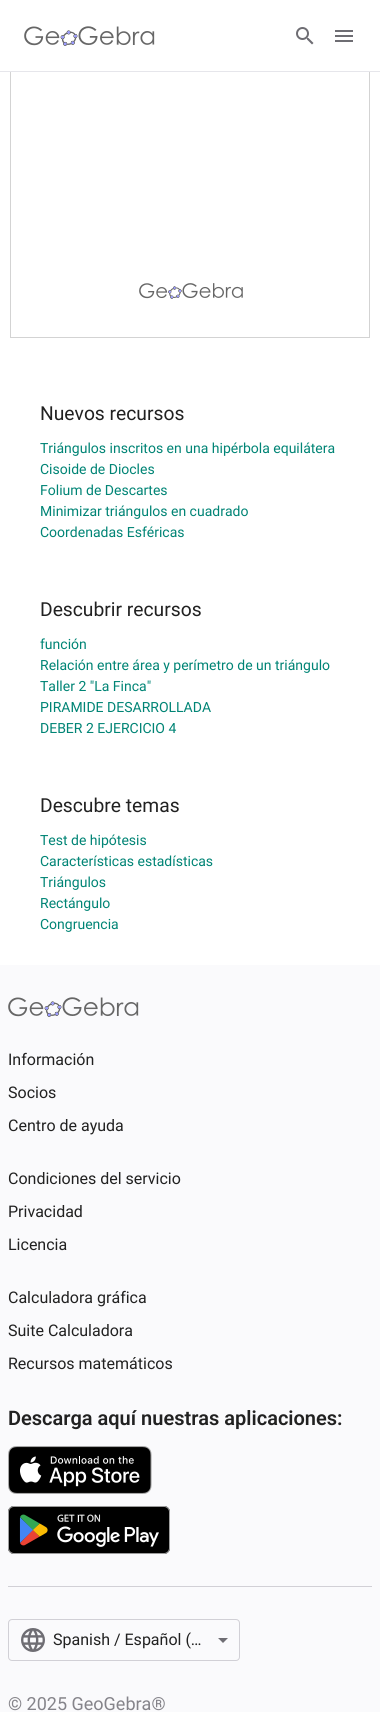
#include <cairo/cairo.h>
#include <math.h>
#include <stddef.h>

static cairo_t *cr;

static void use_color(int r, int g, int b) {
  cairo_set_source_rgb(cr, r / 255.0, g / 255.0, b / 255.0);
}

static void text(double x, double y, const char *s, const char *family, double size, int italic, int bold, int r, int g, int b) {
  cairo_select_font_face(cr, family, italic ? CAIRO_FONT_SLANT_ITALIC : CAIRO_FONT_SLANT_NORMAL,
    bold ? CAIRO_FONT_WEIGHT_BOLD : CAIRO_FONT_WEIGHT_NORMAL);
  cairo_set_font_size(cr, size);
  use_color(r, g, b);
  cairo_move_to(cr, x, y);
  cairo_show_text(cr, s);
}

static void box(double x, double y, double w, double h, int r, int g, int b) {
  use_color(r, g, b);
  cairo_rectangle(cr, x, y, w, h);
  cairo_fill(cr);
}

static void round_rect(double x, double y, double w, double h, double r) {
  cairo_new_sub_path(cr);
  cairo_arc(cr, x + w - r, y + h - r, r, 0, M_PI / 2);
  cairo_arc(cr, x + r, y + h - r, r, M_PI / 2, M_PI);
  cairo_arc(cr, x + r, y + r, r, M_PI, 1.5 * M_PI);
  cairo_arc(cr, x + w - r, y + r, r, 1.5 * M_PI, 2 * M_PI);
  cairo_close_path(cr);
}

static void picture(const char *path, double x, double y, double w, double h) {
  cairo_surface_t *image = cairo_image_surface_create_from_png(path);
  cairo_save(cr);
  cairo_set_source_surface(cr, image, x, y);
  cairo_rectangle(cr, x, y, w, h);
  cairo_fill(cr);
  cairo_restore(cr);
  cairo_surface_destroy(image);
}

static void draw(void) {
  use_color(255, 255, 255);
  cairo_paint(cr);
  picture("img_04.png", 139, 283, 104, 16);
  cairo_rectangle(cr, 10.5, -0.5, 359, 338);
  use_color(211, 211, 211);
  cairo_set_line_width(cr, 1);
  cairo_stroke(cr);
  box(10, 0, 360, 71, 255, 255, 255);
  box(0, 71, 380, 1, 230, 230, 235);
  picture("img_01.png", 24, 26, 131, 20);
  picture("img_02.png", 296, 27, 18, 18);
  picture("img_03.png", 335, 30, 18, 12);
  box(0, 965, 380, 747, 250, 250, 252);
  picture("img_05.png", 8, 997, 131, 20);
  picture("img_06.png", 8, 1446, 144, 48);
  picture("img_07.png", 8, 1506, 162, 48);
  box(8, 1586, 364, 1, 209, 208, 214);
  round_rect(8.5, 1619.5, 231, 41, 3.5);
  cairo_stroke(cr);
  picture("img_08.png", 21, 1628, 24, 24);
  use_color(110, 109, 115);
  cairo_new_path(cr);
  cairo_move_to(cr, 218, 1638);
  cairo_line_to(cr, 223, 1643);
  cairo_line_to(cr, 228, 1638);
  cairo_close_path(cr);
  cairo_fill(cr);
  text(40, 420, "Nuevos recursos", "Roboto", 19.25, 0, 0, 33, 33, 33);
  text(40, 453, "Triángulos inscritos en una hipérbola equilátera", "Roboto", 14, 0, 0, 0, 132, 117);
  text(40, 474, "Cisoide de Diocles", "Roboto", 14, 0, 0, 0, 132, 117);
  text(40, 495, "Folium de Descartes", "Roboto", 14, 0, 0, 0, 132, 117);
  text(40, 516, "Minimizar triángulos en cuadrado", "Roboto", 14, 0, 0, 0, 132, 117);
  text(40, 537, "Coordenadas Esféricas", "Roboto", 14, 0, 0, 0, 132, 117);
  text(40, 616, "Descubrir recursos", "Roboto", 19.25, 0, 0, 33, 33, 33);
  text(40, 649, "función", "Roboto", 14, 0, 0, 0, 132, 117);
  text(40, 670, "Relación entre área y perímetro de un triángulo", "Roboto", 14, 0, 0, 0, 132, 117);
  text(40, 691, "Taller 2 \"La Finca\"", "Roboto", 14, 0, 0, 0, 132, 117);
  text(40, 712, "PIRAMIDE DESARROLLADA", "Roboto", 14, 0, 0, 0, 132, 117);
  text(40, 733, "DEBER 2 EJERCICIO 4", "Roboto", 14, 0, 0, 0, 132, 117);
  text(40, 812, "Descubre temas", "Roboto", 19.25, 0, 0, 33, 33, 33);
  text(40, 845, "Test de hipótesis", "Roboto", 14, 0, 0, 0, 132, 117);
  text(40, 866, "Características estadísticas", "Roboto", 14, 0, 0, 0, 132, 117);
  text(40, 887, "Triángulos", "Roboto", 14, 0, 0, 0, 132, 117);
  text(40, 908, "Rectángulo", "Roboto", 14, 0, 0, 0, 132, 117);
  text(40, 929, "Congruencia", "Roboto", 14, 0, 0, 0, 132, 117);
  text(8, 1065, "Información", "Roboto", 16, 0, 0, 33, 33, 33);
  text(8, 1098, "Socios", "Roboto", 16, 0, 0, 33, 33, 33);
  text(8, 1131, "Centro de ayuda", "Roboto", 16, 0, 0, 33, 33, 33);
  text(8, 1184, "Condiciones del servicio", "Roboto", 16, 0, 0, 33, 33, 33);
  text(8, 1217, "Privacidad", "Roboto", 16, 0, 0, 33, 33, 33);
  text(8, 1250, "Licencia", "Roboto", 16, 0, 0, 33, 33, 33);
  text(8, 1303, "Calculadora gráfica", "Roboto", 16, 0, 0, 33, 33, 33);
  text(8, 1336, "Suite Calculadora", "Roboto", 16, 0, 0, 33, 33, 33);
  text(8, 1369, "Recursos matemáticos", "Roboto", 16, 0, 0, 33, 33, 33);
  text(8, 1425, "Descarga aquí nuestras aplicaciones:", "Roboto SemiBold", 20, 0, 0, 33, 33, 33);
  text(53, 1645, "Spanish / Español (…", "Roboto", 16, 0, 0, 33, 33, 33);
  text(8, 1710, "© 2025 GeoGebra®", "Roboto", 18, 0, 0, 133, 132, 138);
}

int main(void) {
  cairo_surface_t *surface = cairo_image_surface_create(CAIRO_FORMAT_RGB24, 380, 1712);
  cr = cairo_create(surface);
  cairo_font_options_t *options = cairo_font_options_create();
  cairo_font_options_set_hint_metrics(options, CAIRO_HINT_METRICS_OFF);
  cairo_font_options_set_hint_style(options, CAIRO_HINT_STYLE_NONE);
  cairo_set_font_options(cr, options);
  cairo_set_miter_limit(cr, 4);
  draw();
  cairo_surface_write_to_png(surface, "out.png");
  cairo_font_options_destroy(options);
  cairo_destroy(cr);
  cairo_surface_destroy(surface);
  return 0;
}
